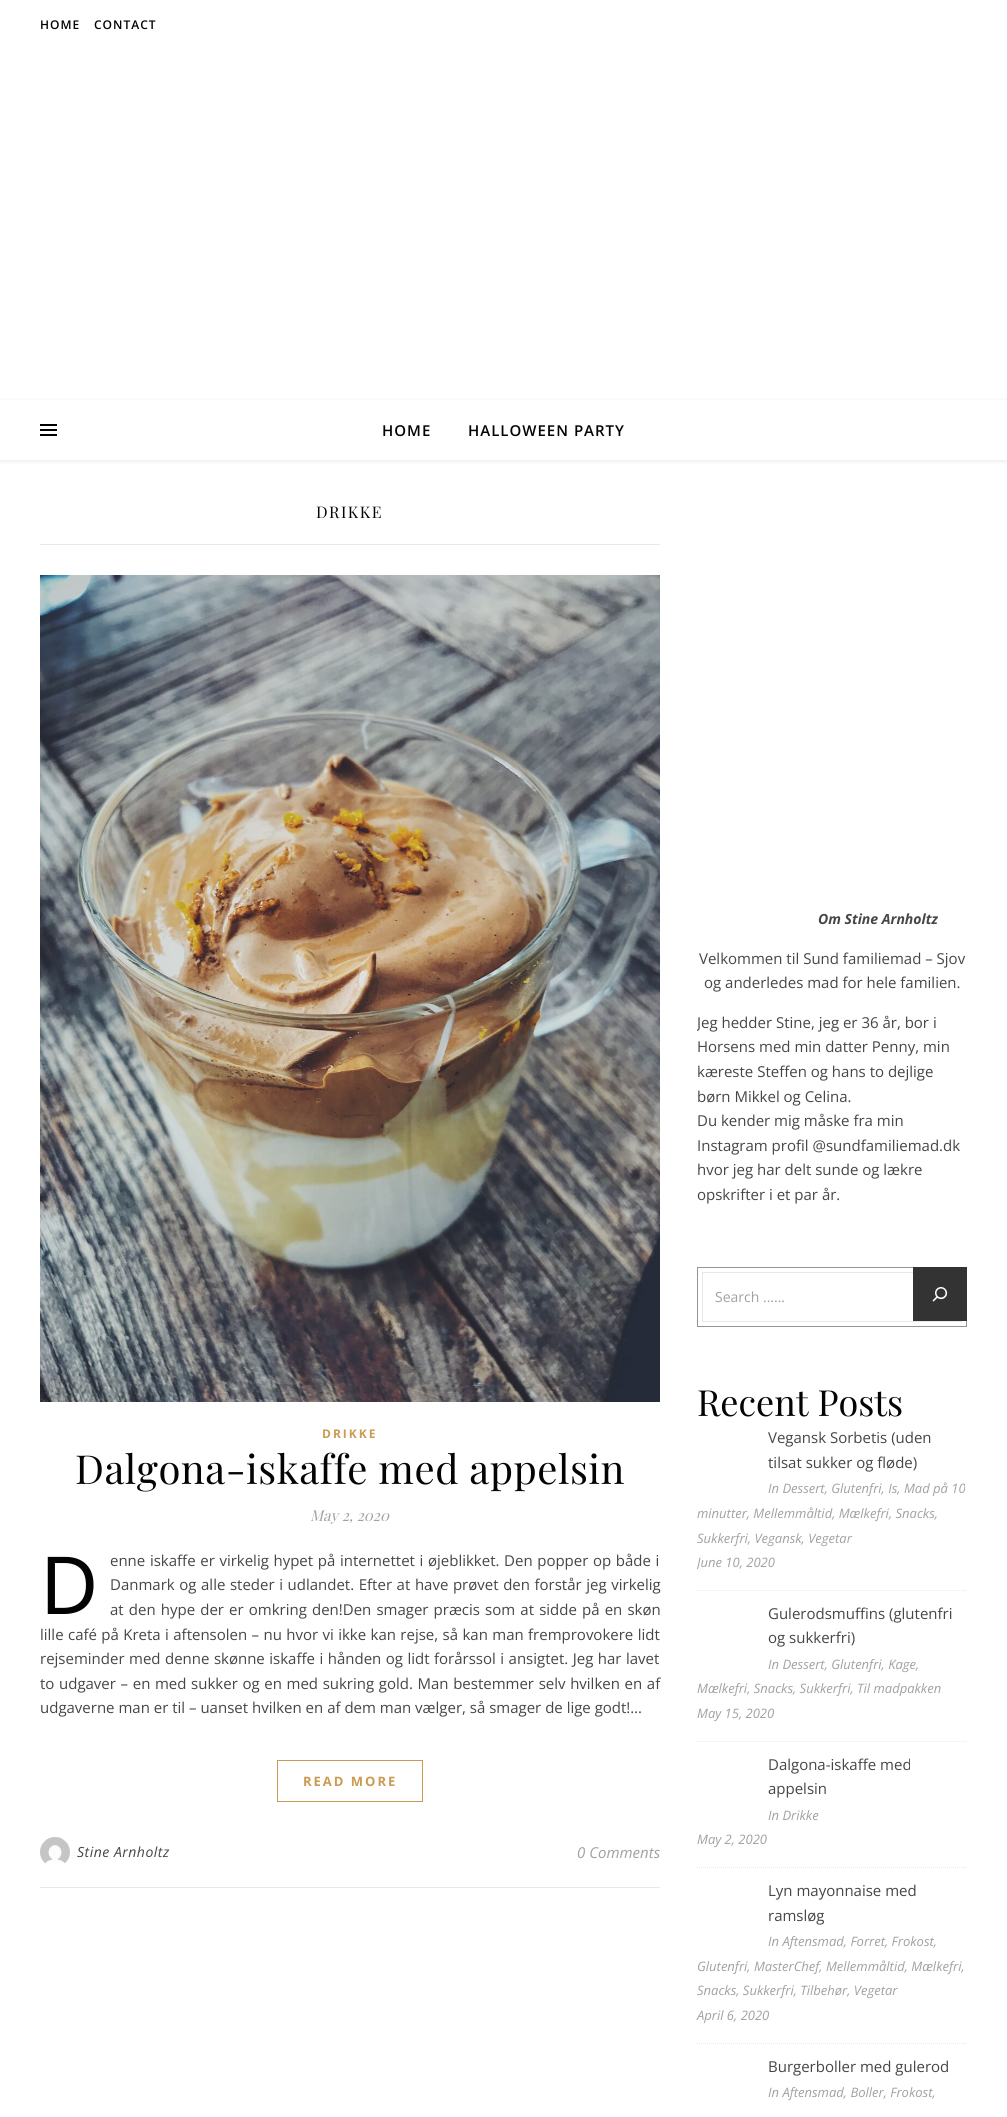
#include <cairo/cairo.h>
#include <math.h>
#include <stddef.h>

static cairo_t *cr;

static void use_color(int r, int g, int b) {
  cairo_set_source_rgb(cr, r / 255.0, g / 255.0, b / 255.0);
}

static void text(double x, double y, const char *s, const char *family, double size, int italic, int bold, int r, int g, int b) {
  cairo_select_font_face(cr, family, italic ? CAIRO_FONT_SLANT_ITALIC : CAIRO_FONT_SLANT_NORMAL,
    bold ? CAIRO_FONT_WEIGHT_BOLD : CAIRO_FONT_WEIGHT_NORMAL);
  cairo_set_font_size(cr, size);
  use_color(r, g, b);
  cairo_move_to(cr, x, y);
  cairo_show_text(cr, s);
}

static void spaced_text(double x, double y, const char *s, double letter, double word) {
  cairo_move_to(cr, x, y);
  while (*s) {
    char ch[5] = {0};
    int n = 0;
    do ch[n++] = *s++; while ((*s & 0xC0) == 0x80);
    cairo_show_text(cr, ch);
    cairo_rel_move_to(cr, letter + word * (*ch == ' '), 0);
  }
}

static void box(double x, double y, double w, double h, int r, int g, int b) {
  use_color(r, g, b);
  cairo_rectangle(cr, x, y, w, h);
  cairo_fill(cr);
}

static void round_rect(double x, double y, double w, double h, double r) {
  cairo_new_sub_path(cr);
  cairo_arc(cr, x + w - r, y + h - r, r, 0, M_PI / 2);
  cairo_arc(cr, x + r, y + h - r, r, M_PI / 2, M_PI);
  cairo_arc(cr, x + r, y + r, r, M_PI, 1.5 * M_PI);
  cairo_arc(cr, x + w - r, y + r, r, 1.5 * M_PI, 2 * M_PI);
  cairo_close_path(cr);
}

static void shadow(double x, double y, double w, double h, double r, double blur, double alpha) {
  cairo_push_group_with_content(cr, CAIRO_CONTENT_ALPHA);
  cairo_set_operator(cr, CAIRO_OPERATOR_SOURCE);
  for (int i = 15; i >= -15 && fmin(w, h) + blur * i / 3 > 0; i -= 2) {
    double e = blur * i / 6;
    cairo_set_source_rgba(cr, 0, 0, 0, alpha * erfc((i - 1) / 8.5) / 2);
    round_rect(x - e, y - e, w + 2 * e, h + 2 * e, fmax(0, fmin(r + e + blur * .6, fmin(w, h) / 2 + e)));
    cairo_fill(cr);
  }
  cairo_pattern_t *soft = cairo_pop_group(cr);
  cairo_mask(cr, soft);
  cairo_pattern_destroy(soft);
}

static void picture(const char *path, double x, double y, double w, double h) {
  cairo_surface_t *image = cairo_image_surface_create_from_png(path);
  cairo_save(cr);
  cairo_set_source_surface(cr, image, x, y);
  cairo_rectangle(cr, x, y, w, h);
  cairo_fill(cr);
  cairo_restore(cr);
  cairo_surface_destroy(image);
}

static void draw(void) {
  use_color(255, 255, 255);
  cairo_paint(cr);
  cairo_save(cr);
  cairo_set_fill_rule(cr, CAIRO_FILL_RULE_EVEN_ODD);
  cairo_new_path(cr);
  cairo_move_to(cr, 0, 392);
  cairo_line_to(cr, 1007, 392);
  cairo_line_to(cr, 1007, 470);
  cairo_line_to(cr, 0, 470);
  cairo_close_path(cr);
  cairo_move_to(cr, 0, 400);
  cairo_line_to(cr, 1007, 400);
  cairo_line_to(cr, 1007, 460);
  cairo_line_to(cr, 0, 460);
  cairo_close_path(cr);
  cairo_clip(cr);
  use_color(0, 0, 0);
  shadow(0, 401, 1007, 60, 0, 2.5, 0.1);
  cairo_restore(cr);
  box(40, 424, 17, 2, 0, 0, 0);
  box(40, 429, 17, 2, 0, 0, 0);
  box(40, 434, 17, 2, 0, 0, 0);
  box(40, 544, 620, 1, 232, 232, 232);
  picture("img_01.png", 40, 575, 620, 827);
  cairo_rectangle(cr, 277.5, 1760.5, 145, 41);
  use_color(202, 155, 82);
  cairo_set_line_width(cr, 1);
  cairo_stroke(cr);
  box(40, 1887, 620, 1, 232, 232, 232);
  picture("img_02.png", 40, 1837, 30, 28);
  cairo_rectangle(cr, 697.5, 1267.5, 269, 59);
  use_color(148, 148, 148);
  cairo_stroke(cr);
  cairo_rectangle(cr, 702.5, 1272.5, 259, 49);
  use_color(232, 232, 232);
  cairo_stroke(cr);
  box(913, 1267, 54, 54, 51, 51, 51);
  picture("img_03.png", 932, 1287, 16, 15);
  cairo_new_path(cr);
  cairo_move_to(cr, 697, 1590.5);
  cairo_line_to(cr, 967, 1590.5);
  use_color(232, 232, 232);
  cairo_set_dash(cr, (double[]){1, 1}, 2, 0);
  cairo_stroke(cr);
  cairo_new_path(cr);
  cairo_move_to(cr, 697, 1741.5);
  cairo_line_to(cr, 967, 1741.5);
  cairo_stroke(cr);
  cairo_new_path(cr);
  cairo_move_to(cr, 697, 1867.5);
  cairo_line_to(cr, 967, 1867.5);
  cairo_stroke(cr);
  cairo_new_path(cr);
  cairo_move_to(cr, 697, 2043.5);
  cairo_line_to(cr, 967, 2043.5);
  cairo_stroke(cr);
  cairo_select_font_face(cr, "Open Sans SemiBold", CAIRO_FONT_SLANT_NORMAL, CAIRO_FONT_WEIGHT_NORMAL);
  cairo_set_font_size(cr, 12);
  use_color(3, 3, 3);
  spaced_text(40, 29, "HOME", 1, 0);
  spaced_text(94, 29, "CONTACT", 1, 0);
  cairo_set_font_size(cr, 15);
  spaced_text(382, 436, "HOME", 1, 0);
  spaced_text(468, 436, "HALLOWEEN PARTY", 1, 0);
  cairo_select_font_face(cr, "Playfair Display", CAIRO_FONT_SLANT_NORMAL, CAIRO_FONT_WEIGHT_NORMAL);
  cairo_set_font_size(cr, 16);
  spaced_text(316, 518, "DRIKKE", 1.5, 0);
  cairo_select_font_face(cr, "Open Sans", CAIRO_FONT_SLANT_NORMAL, CAIRO_FONT_WEIGHT_BOLD);
  cairo_set_font_size(cr, 12);
  use_color(202, 155, 82);
  spaced_text(322, 1438, "DRIKKE", 2, 0);
  cairo_select_font_face(cr, "Playfair Display", CAIRO_FONT_SLANT_NORMAL, CAIRO_FONT_WEIGHT_NORMAL);
  cairo_set_font_size(cr, 40);
  use_color(3, 3, 3);
  spaced_text(75, 1484, "Dalgona-iskaffe med appelsin", 0.5, 0);
  text(310, 1521, "May 2, 2020", "Playfair Display", 15, 1, 0, 161, 161, 161);
  text(40, 1614, "D", "Noto Sans", 80, 0, 0, 3, 3, 3);
  cairo_select_font_face(cr, "Open Sans", CAIRO_FONT_SLANT_NORMAL, CAIRO_FONT_WEIGHT_NORMAL);
  cairo_set_font_size(cr, 15);
  use_color(70, 70, 70);
  spaced_text(110, 1566, "enne iskaffe er virkelig hypet på internettet i øjeblikket. Den popper op både i", 0, 0.75);
  spaced_text(110, 1590, "Danmark og alle steder i udlandet. Efter at have prøvet den forstår jeg virkelig", 0, 0.7);
  spaced_text(110, 1615, "at den hype der er omkring den!Den smager præcis som at sidde på en skøn", 0, 1.25);
  spaced_text(40, 1640, "lille café på Kreta i aftensolen – nu hvor vi ikke kan rejse, så kan man fremprovokere lidt", 0, 0.5);
  spaced_text(40, 1664, "rejseminder med denne skønne iskaffe i hånden og lidt forårssol i ansigtet. Jeg har lavet", 0, 0.6);
  spaced_text(40, 1689, "to udgaver – en med sukker og en med sukring gold. Man bestemmer selv hvilken en af", 0, 0.75);
  text(40, 1713, "udgaverne man er til – uanset hvilken en af dem man vælger, så smager de lige godt!…", "Open Sans", 15, 0, 0, 70, 70, 70);
  cairo_select_font_face(cr, "Open Sans", CAIRO_FONT_SLANT_NORMAL, CAIRO_FONT_WEIGHT_BOLD);
  cairo_set_font_size(cr, 13);
  use_color(202, 155, 82);
  spaced_text(303, 1786, "READ MORE", 2, 0);
  cairo_select_font_face(cr, "Open Sans", CAIRO_FONT_SLANT_ITALIC, CAIRO_FONT_WEIGHT_NORMAL);
  cairo_set_font_size(cr, 14);
  use_color(70, 70, 70);
  spaced_text(77, 1857, "Stine Arnholtz", 0.5, 0);
  text(577, 1858, "0 Comments", "Open Sans", 15, 1, 0, 161, 161, 161);
  text(818, 924, "Om Stine Arnholtz", "Open Sans", 14, 1, 1, 70, 70, 70);
  text(699, 964, "Velkommen til Sund familiemad – Sjov", "Open Sans", 15, 0, 0, 70, 70, 70);
  text(704, 988, "og anderledes mad for hele familien.", "Open Sans", 15, 0, 0, 70, 70, 70);
  cairo_save(cr);
  cairo_rectangle(cr, 697, 500, 270, 722);
  cairo_clip(cr);
  text(697, 1028, "Jeg hedder Stine, jeg er 36 år, bor i", "Open Sans", 15, 0, 0, 70, 70, 70);
  cairo_restore(cr);
  text(697, 1052, "Horsens med min datter Penny, min", "Open Sans", 15, 0, 0, 70, 70, 70);
  text(697, 1077, "kæreste Steffen og hans to dejlige", "Open Sans", 15, 0, 0, 70, 70, 70);
  text(697, 1102, "børn Mikkel og Celina.", "Open Sans", 15, 0, 0, 70, 70, 70);
  text(697, 1126, "Du kender mig måske fra min", "Open Sans", 15, 0, 0, 70, 70, 70);
  text(697, 1151, "Instagram profil @sundfamiliemad.dk", "Open Sans", 15, 0, 0, 70, 70, 70);
  text(697, 1175, "hvor jeg har delt sunde og lækre", "Open Sans", 15, 0, 0, 70, 70, 70);
  text(697, 1200, "opskrifter i et par år.", "Open Sans", 15, 0, 0, 70, 70, 70);
  text(715, 1302, "Search ......", "Open Sans", 14, 0, 0, 161, 161, 161);
  text(697, 1416, "Recent Posts", "Playfair Display", 36, 0, 0, 3, 3, 3);
  text(768, 1443, "Vegansk Sorbetis (uden", "Open Sans", 15, 0, 0, 70, 70, 70);
  text(768, 1468, "tilsat sukker og fløde)", "Open Sans", 15, 0, 0, 70, 70, 70);
  text(768, 1493, "In Dessert, Glutenfri, Is, Mad på 10", "Open Sans", 13, 1, 0, 161, 161, 161);
  text(697, 1518, "minutter, Mellemmåltid, Mælkefri, Snacks,", "Open Sans", 13, 1, 0, 161, 161, 161);
  text(697, 1543, "Sukkerfri, Vegansk, Vegetar", "Open Sans", 13, 1, 0, 161, 161, 161);
  cairo_save(cr);
  cairo_rectangle(cr, 697, 1425, 270, 165);
  cairo_clip(cr);
  text(697, 1567, "June 10, 2020", "Open Sans", 13, 1, 0, 161, 161, 161);
  cairo_restore(cr);
  text(768, 1619, "Gulerodsmuffins (glutenfri", "Open Sans", 15, 0, 0, 70, 70, 70);
  text(768, 1643, "og sukkerfri)", "Open Sans", 15, 0, 0, 70, 70, 70);
  text(768, 1669, "In Dessert, Glutenfri, Kage,", "Open Sans", 13, 1, 0, 161, 161, 161);
  text(697, 1693, "Mælkefri, Snacks, Sukkerfri, Til madpakken", "Open Sans", 13, 1, 0, 161, 161, 161);
  text(697, 1718, "May 15, 2020", "Open Sans", 13, 1, 0, 161, 161, 161);
  text(768, 1770, "Dalgona-iskaffe med", "Open Sans", 15, 0, 0, 70, 70, 70);
  text(768, 1794, "appelsin", "Open Sans", 15, 0, 0, 70, 70, 70);
  text(768, 1820, "In Drikke", "Open Sans", 13, 1, 0, 161, 161, 161);
  text(697, 1844, "May 2, 2020", "Open Sans", 13, 1, 0, 161, 161, 161);
  text(768, 1896, "Lyn mayonnaise med", "Open Sans", 15, 0, 0, 70, 70, 70);
  text(768, 1921, "ramsløg", "Open Sans", 15, 0, 0, 70, 70, 70);
  text(768, 1946, "In Aftensmad, Forret, Frokost,", "Open Sans", 13, 1, 0, 161, 161, 161);
  text(697, 1971, "Glutenfri, MasterChef, Mellemmåltid, Mælkefri,", "Open Sans", 13, 1, 0, 161, 161, 161);
  text(697, 1995, "Snacks, Sukkerfri, Tilbehør, Vegetar", "Open Sans", 13, 1, 0, 161, 161, 161);
  text(697, 2020, "April 6, 2020", "Open Sans", 13, 1, 0, 161, 161, 161);
  text(768, 2072, "Burgerboller med gulerod", "Open Sans", 15, 0, 0, 70, 70, 70);
  text(768, 2097, "In Aftensmad, Boller, Frokost,", "Open Sans", 13, 1, 0, 161, 161, 161);
}

int main(void) {
  cairo_surface_t *surface = cairo_image_surface_create(CAIRO_FORMAT_RGB24, 1007, 2117);
  cr = cairo_create(surface);
  cairo_font_options_t *options = cairo_font_options_create();
  cairo_font_options_set_hint_metrics(options, CAIRO_HINT_METRICS_OFF);
  cairo_font_options_set_hint_style(options, CAIRO_HINT_STYLE_NONE);
  cairo_set_font_options(cr, options);
  cairo_set_miter_limit(cr, 4);
  draw();
  cairo_surface_write_to_png(surface, "out.png");
  cairo_font_options_destroy(options);
  cairo_destroy(cr);
  cairo_surface_destroy(surface);
  return 0;
}
